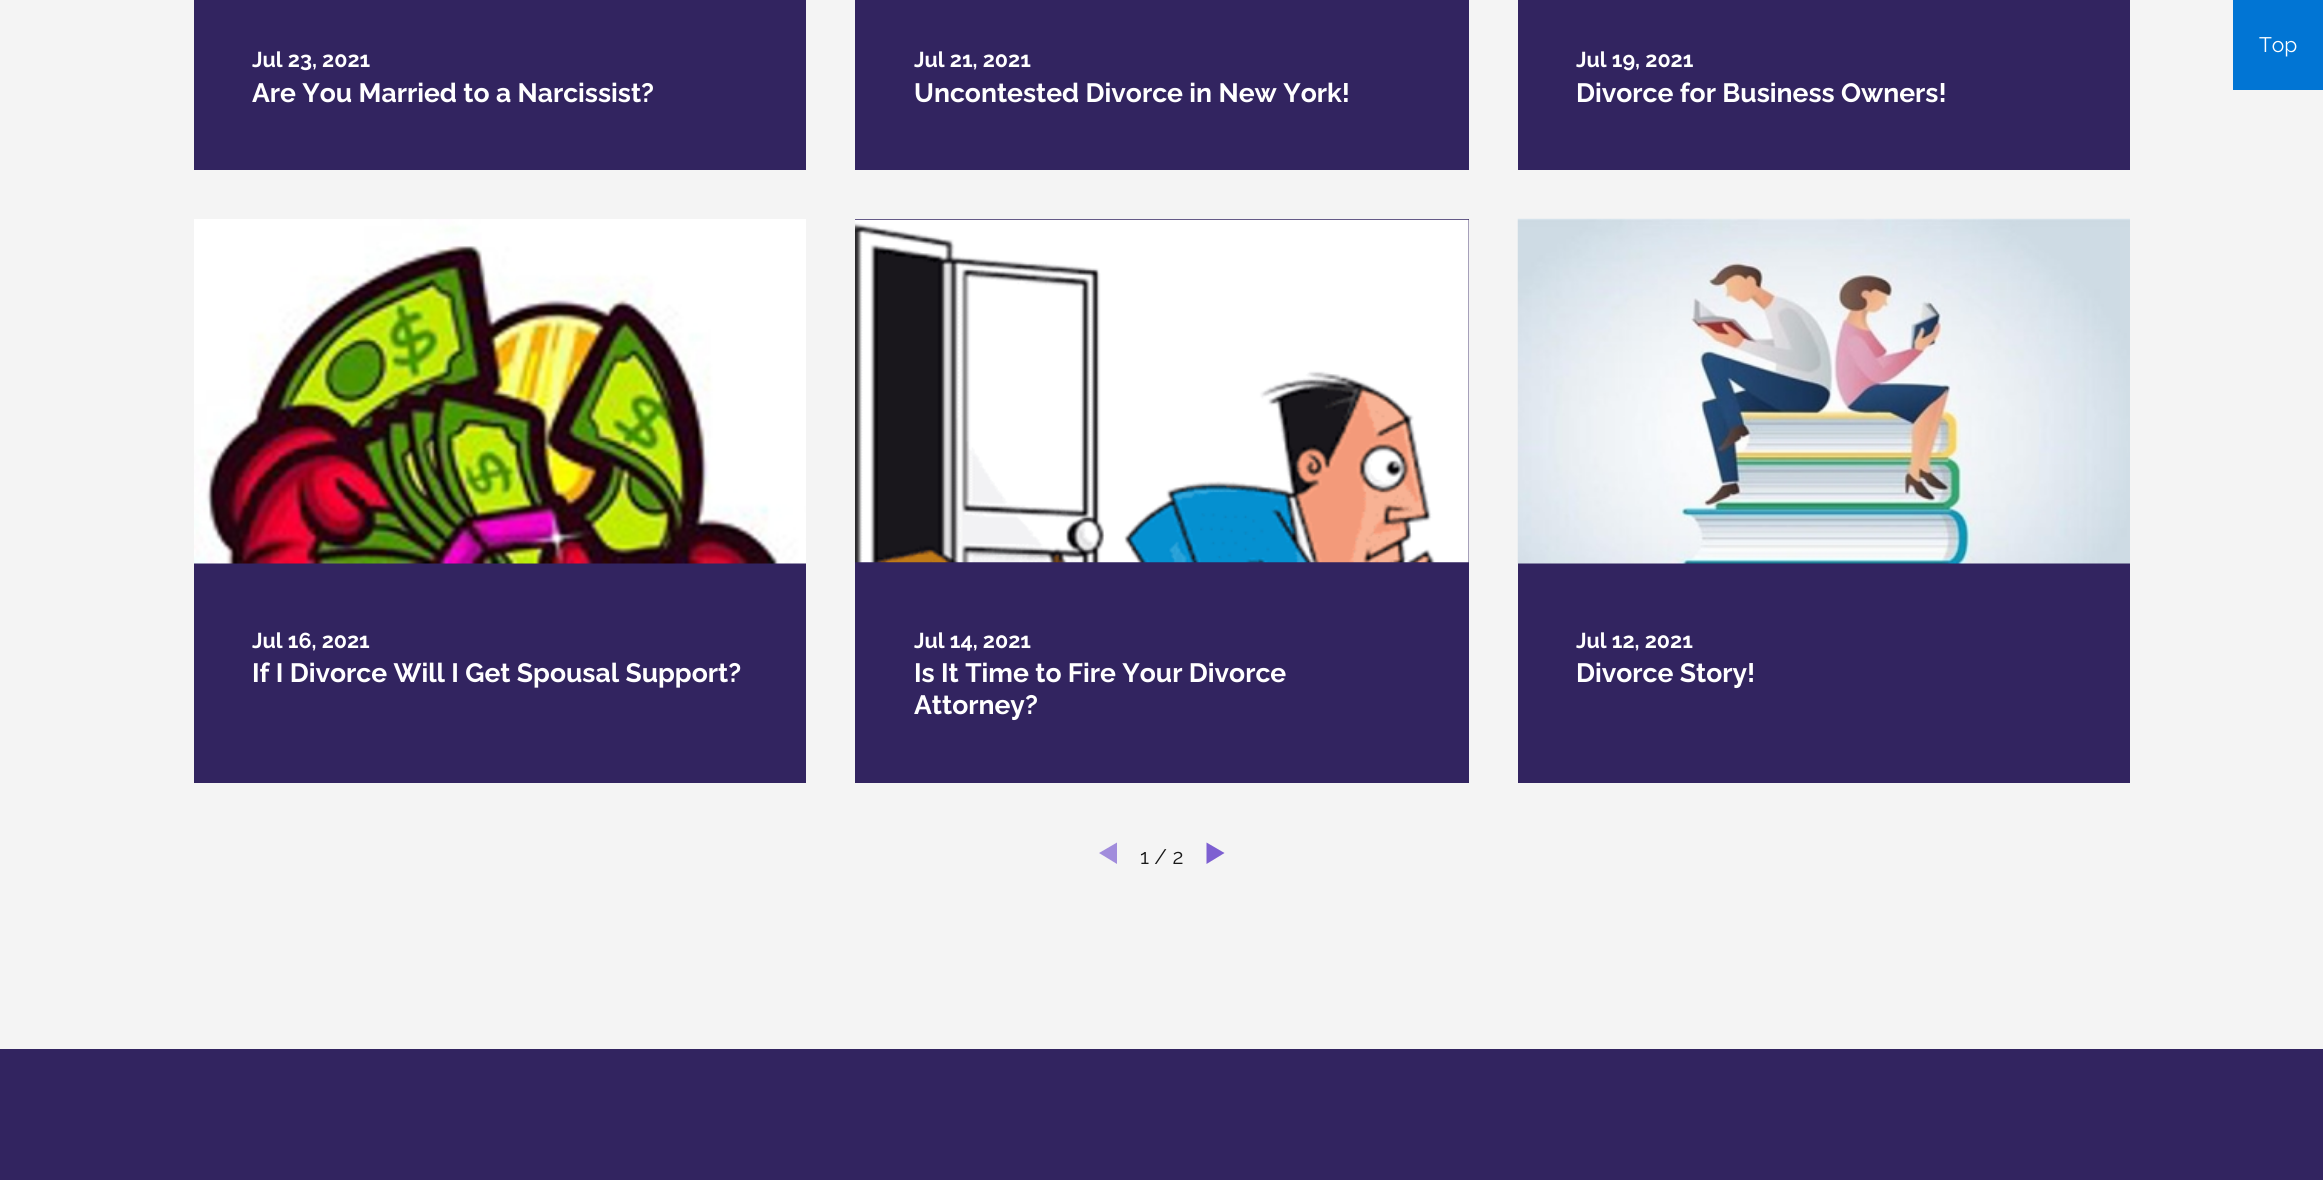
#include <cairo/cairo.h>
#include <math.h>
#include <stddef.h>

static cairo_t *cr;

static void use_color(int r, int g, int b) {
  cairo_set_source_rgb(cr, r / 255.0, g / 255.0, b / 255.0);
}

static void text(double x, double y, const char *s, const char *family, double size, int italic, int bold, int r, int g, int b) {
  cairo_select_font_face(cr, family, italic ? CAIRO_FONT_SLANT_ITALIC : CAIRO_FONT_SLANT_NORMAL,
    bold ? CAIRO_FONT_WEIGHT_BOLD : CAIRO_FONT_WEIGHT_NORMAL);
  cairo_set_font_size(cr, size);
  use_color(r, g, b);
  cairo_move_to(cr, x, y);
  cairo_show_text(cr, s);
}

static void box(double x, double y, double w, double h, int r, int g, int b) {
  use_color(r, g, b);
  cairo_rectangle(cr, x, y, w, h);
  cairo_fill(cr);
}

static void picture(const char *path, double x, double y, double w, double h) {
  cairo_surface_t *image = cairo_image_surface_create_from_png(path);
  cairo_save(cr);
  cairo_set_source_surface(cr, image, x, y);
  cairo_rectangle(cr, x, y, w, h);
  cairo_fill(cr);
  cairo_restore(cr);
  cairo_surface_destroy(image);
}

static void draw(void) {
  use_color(244, 244, 244);
  cairo_paint(cr);
  box(2233, 0, 90, 90, 1, 117, 212);
  box(194, 0, 612, 170, 50, 36, 96);
  box(855, 0, 614, 170, 50, 36, 96);
  box(1518, 0, 612, 170, 50, 36, 96);
  box(194, 563, 612, 220, 50, 36, 96);
  picture("img_01.png", 194, 219, 612, 345);
  box(855, 219, 614, 564, 50, 36, 96);
  picture("img_02.png", 855, 219, 614, 344);
  box(1518, 563, 612, 220, 50, 36, 96);
  picture("img_03.png", 1517, 218, 613, 346);
  use_color(161, 140, 220);
  cairo_new_path(cr);
  cairo_move_to(cr, 1099, 853);
  cairo_line_to(cr, 1117, 842.5);
  cairo_line_to(cr, 1117, 864);
  cairo_close_path(cr);
  cairo_fill(cr);
  use_color(125, 95, 209);
  cairo_new_path(cr);
  cairo_move_to(cr, 1224.5, 853);
  cairo_line_to(cr, 1206.5, 864);
  cairo_line_to(cr, 1206.5, 842.5);
  cairo_close_path(cr);
  cairo_fill(cr);
  box(0, 1049, 2323, 131, 50, 36, 96);
  text(2259, 52, "Top", "Raleway", 21, 0, 0, 255, 255, 255);
  text(252, 67, "Jul 23, 2021", "Raleway", 21.5, 0, 1, 255, 255, 255);
  text(252, 102, "Are You Married to a Narcissist?", "Raleway", 26.5, 0, 1, 255, 255, 255);
  text(914, 67, "Jul 21, 2021", "Raleway", 21.5, 0, 1, 255, 255, 255);
  text(914, 102, "Uncontested Divorce in New York!", "Raleway", 26.5, 0, 1, 255, 255, 255);
  text(1576, 67, "Jul 19, 2021", "Raleway", 21.5, 0, 1, 255, 255, 255);
  text(1576, 102, "Divorce for Business Owners!", "Raleway", 26.5, 0, 1, 255, 255, 255);
  text(252, 648, "Jul 16, 2021", "Raleway", 21.5, 0, 1, 255, 255, 255);
  text(252, 682, "If I Divorce Will I Get Spousal Support?", "Raleway", 26.5, 0, 1, 255, 255, 255);
  text(914, 648, "Jul 14, 2021", "Raleway", 21.5, 0, 1, 255, 255, 255);
  text(914, 682, "Is It Time to Fire Your Divorce", "Raleway", 26.5, 0, 1, 255, 255, 255);
  text(914, 714, "Attorney?", "Raleway", 26.5, 0, 1, 255, 255, 255);
  text(1576, 648, "Jul 12, 2021", "Raleway", 21.5, 0, 1, 255, 255, 255);
  text(1576, 682, "Divorce Story!", "Raleway", 26.5, 0, 1, 255, 255, 255);
  text(1140, 864, "1 / 2", "Raleway", 21, 0, 0, 25, 25, 25);
}

int main(void) {
  cairo_surface_t *surface = cairo_image_surface_create(CAIRO_FORMAT_RGB24, 2323, 1180);
  cr = cairo_create(surface);
  cairo_font_options_t *options = cairo_font_options_create();
  cairo_font_options_set_hint_metrics(options, CAIRO_HINT_METRICS_OFF);
  cairo_font_options_set_hint_style(options, CAIRO_HINT_STYLE_NONE);
  cairo_set_font_options(cr, options);
  cairo_set_miter_limit(cr, 4);
  draw();
  cairo_surface_write_to_png(surface, "out.png");
  cairo_font_options_destroy(options);
  cairo_destroy(cr);
  cairo_surface_destroy(surface);
  return 0;
}
